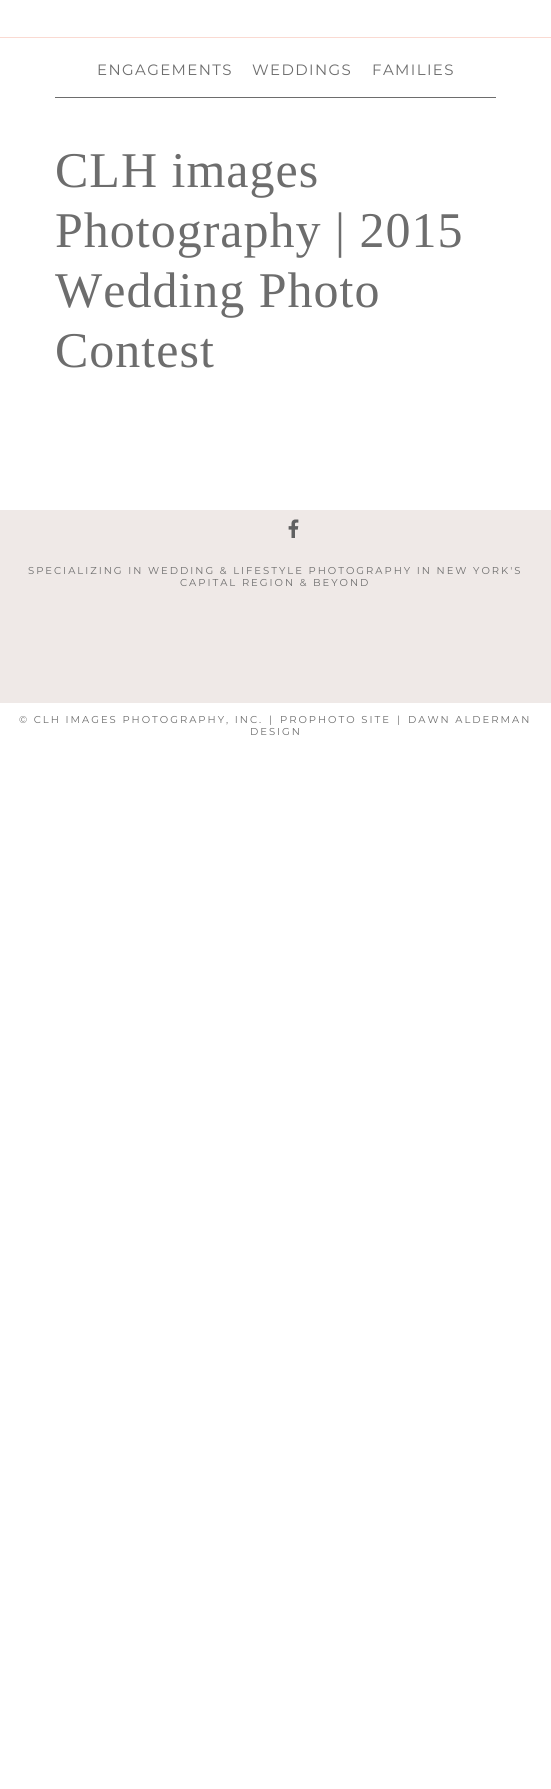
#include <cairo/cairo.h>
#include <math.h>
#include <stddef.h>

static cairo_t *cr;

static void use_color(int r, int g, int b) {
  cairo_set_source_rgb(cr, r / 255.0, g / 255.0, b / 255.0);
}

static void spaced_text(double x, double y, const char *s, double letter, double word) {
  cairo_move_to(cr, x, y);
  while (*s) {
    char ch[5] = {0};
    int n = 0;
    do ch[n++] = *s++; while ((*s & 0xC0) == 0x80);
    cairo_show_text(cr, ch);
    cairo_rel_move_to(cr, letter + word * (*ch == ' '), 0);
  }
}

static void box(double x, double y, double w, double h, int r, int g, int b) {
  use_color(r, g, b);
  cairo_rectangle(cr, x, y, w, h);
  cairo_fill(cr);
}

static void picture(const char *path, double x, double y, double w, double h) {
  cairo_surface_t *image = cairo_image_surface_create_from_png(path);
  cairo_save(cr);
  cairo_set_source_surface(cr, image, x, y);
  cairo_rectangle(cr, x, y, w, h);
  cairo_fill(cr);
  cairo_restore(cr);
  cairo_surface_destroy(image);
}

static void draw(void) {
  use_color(255, 255, 255);
  cairo_paint(cr);
  box(0, 37, 551, 1, 250, 218, 210);
  box(55, 97, 441, 1, 109, 109, 109);
  box(0, 510, 551, 193, 239, 233, 231);
  picture("img_01.png", 288, 519, 11, 19);
  cairo_select_font_face(cr, "Montserrat Thin", CAIRO_FONT_SLANT_NORMAL, CAIRO_FONT_WEIGHT_NORMAL);
  cairo_set_font_size(cr, 15);
  use_color(109, 109, 109);
  spaced_text(97, 75, "ENGAGEMENTS", 1.4, 0);
  spaced_text(252, 75, "WEDDINGS", 1.4, 0);
  spaced_text(372, 75, "FAMILIES", 1.4, 0);
  cairo_select_font_face(cr, "Liberation Serif", CAIRO_FONT_SLANT_NORMAL, CAIRO_FONT_WEIGHT_NORMAL);
  cairo_set_font_size(cr, 50);
  spaced_text(55, 187, "CLH images", 1, 0);
  spaced_text(55, 247, "Photography | 2015", 1, 0);
  spaced_text(55, 307, "Wedding Photo", 1, 0);
  spaced_text(55, 367, "Contest", 1, 0);
  cairo_select_font_face(cr, "Montserrat Thin", CAIRO_FONT_SLANT_NORMAL, CAIRO_FONT_WEIGHT_NORMAL);
  cairo_set_font_size(cr, 10);
  spaced_text(28, 574, "SPECIALIZING IN WEDDING & LIFESTYLE PHOTOGRAPHY IN NEW YORK'S", 2, 0);
  spaced_text(180, 586, "CAPITAL REGION & BEYOND", 2, 0);
  spaced_text(19, 723, "© CLH IMAGES PHOTOGRAPHY, INC.", 2, 0);
  spaced_text(269, 723, "|", 2, 0);
  spaced_text(280, 723, "PROPHOTO SITE", 2, 0);
  spaced_text(397, 723, "|", 2, 0);
  spaced_text(408, 723, "DAWN ALDERMAN", 2, 0);
  spaced_text(250, 735, "DESIGN", 2, 0);
}

int main(void) {
  cairo_surface_t *surface = cairo_image_surface_create(CAIRO_FORMAT_RGB24, 551, 1789);
  cr = cairo_create(surface);
  cairo_font_options_t *options = cairo_font_options_create();
  cairo_font_options_set_hint_metrics(options, CAIRO_HINT_METRICS_OFF);
  cairo_font_options_set_hint_style(options, CAIRO_HINT_STYLE_NONE);
  cairo_set_font_options(cr, options);
  cairo_set_miter_limit(cr, 4);
  draw();
  cairo_surface_write_to_png(surface, "out.png");
  cairo_font_options_destroy(options);
  cairo_destroy(cr);
  cairo_surface_destroy(surface);
  return 0;
}
